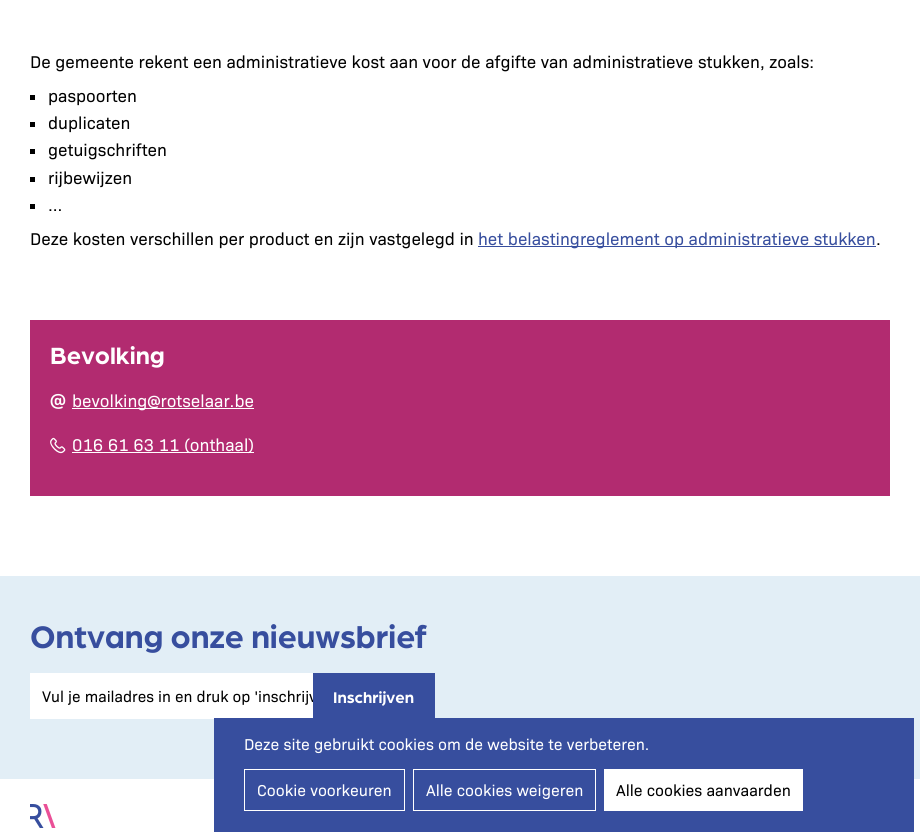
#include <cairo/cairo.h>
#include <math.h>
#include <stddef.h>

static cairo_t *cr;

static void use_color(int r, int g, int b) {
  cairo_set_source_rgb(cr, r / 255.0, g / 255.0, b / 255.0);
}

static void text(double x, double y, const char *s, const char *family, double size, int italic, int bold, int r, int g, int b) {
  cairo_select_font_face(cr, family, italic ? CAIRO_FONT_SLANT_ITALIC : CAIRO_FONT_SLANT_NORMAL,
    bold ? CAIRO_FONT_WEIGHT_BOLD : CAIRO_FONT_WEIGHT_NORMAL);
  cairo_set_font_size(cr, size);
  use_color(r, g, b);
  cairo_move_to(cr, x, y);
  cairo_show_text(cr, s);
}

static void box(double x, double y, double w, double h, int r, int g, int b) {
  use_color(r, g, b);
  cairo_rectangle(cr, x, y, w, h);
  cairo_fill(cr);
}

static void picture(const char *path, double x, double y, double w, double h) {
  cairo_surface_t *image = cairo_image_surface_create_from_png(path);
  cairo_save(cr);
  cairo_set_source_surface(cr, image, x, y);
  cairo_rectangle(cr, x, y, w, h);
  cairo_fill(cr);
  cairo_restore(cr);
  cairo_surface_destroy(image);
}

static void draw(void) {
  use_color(255, 255, 255);
  cairo_paint(cr);
  box(30, 95, 5, 5, 0, 0, 0);
  box(30, 122, 5, 5, 0, 0, 0);
  box(30, 149, 5, 5, 0, 0, 0);
  box(30, 177, 5, 5, 0, 0, 0);
  box(30, 204, 5, 5, 0, 0, 0);
  box(478, 246, 398, 1, 55, 78, 158);
  box(30, 320, 860, 176, 178, 43, 112);
  picture("img_01.png", 50, 393, 16, 16);
  box(72, 408, 182, 1, 255, 255, 255);
  picture("img_02.png", 50, 437, 16, 17);
  box(72, 452, 182, 1, 255, 255, 255);
  box(0, 576, 920, 203, 226, 238, 246);
  box(30, 673, 283, 46, 255, 255, 255);
  box(214, 718, 700, 114, 55, 78, 158);
  cairo_rectangle(cr, 244.5, 769.5, 160, 41);
  use_color(255, 255, 255);
  cairo_set_line_width(cr, 1);
  cairo_stroke(cr);
  cairo_rectangle(cr, 413.5, 769.5, 182, 41);
  cairo_stroke(cr);
  box(604, 769, 199, 42, 255, 255, 255);
  picture("img_03.png", 30, 804, 26, 24);
  text(30, 68, "De gemeente rekent een administratieve kost aan voor de afgifte van administratieve stukken, zoals:", "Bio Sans", 17.3, 0, 0, 0, 0, 0);
  text(48, 102, "paspoorten", "Bio Sans", 17.3, 0, 0, 0, 0, 0);
  text(48, 129, "duplicaten", "Bio Sans", 17.3, 0, 0, 0, 0, 0);
  text(48, 156, "getuigschriften", "Bio Sans", 17.3, 0, 0, 0, 0, 0);
  text(48, 184, "rijbewijzen", "Bio Sans", 17.3, 0, 0, 0, 0, 0);
  text(48, 211, "...", "Bio Sans", 17.3, 0, 0, 0, 0, 0);
  text(30, 245, "Deze kosten verschillen per product en zijn vastgelegd in", "Bio Sans", 17.3, 0, 0, 0, 0, 0);
  text(478, 245, "het belastingreglement op administratieve stukken", "Bio Sans", 17.3, 0, 0, 55, 78, 158);
  text(876, 245, ".", "Bio Sans", 17.3, 0, 0, 0, 0, 0);
  text(50, 364, "Bevolking", "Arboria", 25, 0, 1, 255, 255, 255);
  text(72, 407, "bevolking@rotselaar.be", "Bio Sans", 17.3, 0, 0, 255, 255, 255);
  text(72, 451, "016 61 63 11 (onthaal)", "Bio Sans", 17.3, 0, 0, 255, 255, 255);
  text(30, 648, "Ontvang onze nieuwsbrief", "Arboria", 33.25, 0, 1, 55, 78, 158);
  text(42, 702, "Vul je mailadres in en druk op 'inschrijv", "Bio Sans", 15.6, 0, 0, 0, 0, 0);
  box(313, 673, 122, 45, 55, 78, 158);
  text(333, 703, "Inschrijven", "Arboria", 16.5, 0, 1, 255, 255, 255);
  text(244, 750, "Deze site gebruikt cookies om de website te verbeteren.", "Bio Sans", 16, 0, 0, 255, 255, 255);
  text(257, 796, "Cookie voorkeuren", "Bio Sans", 16, 0, 0, 255, 255, 255);
  text(426, 796, "Alle cookies weigeren", "Bio Sans", 16, 0, 0, 255, 255, 255);
  text(616, 796, "Alle cookies aanvaarden", "Bio Sans", 16, 0, 0, 0, 0, 0);
}

int main(void) {
  cairo_surface_t *surface = cairo_image_surface_create(CAIRO_FORMAT_RGB24, 920, 838);
  cr = cairo_create(surface);
  cairo_font_options_t *options = cairo_font_options_create();
  cairo_font_options_set_hint_metrics(options, CAIRO_HINT_METRICS_OFF);
  cairo_font_options_set_hint_style(options, CAIRO_HINT_STYLE_NONE);
  cairo_set_font_options(cr, options);
  cairo_set_miter_limit(cr, 4);
  draw();
  cairo_surface_write_to_png(surface, "out.png");
  cairo_font_options_destroy(options);
  cairo_destroy(cr);
  cairo_surface_destroy(surface);
  return 0;
}
